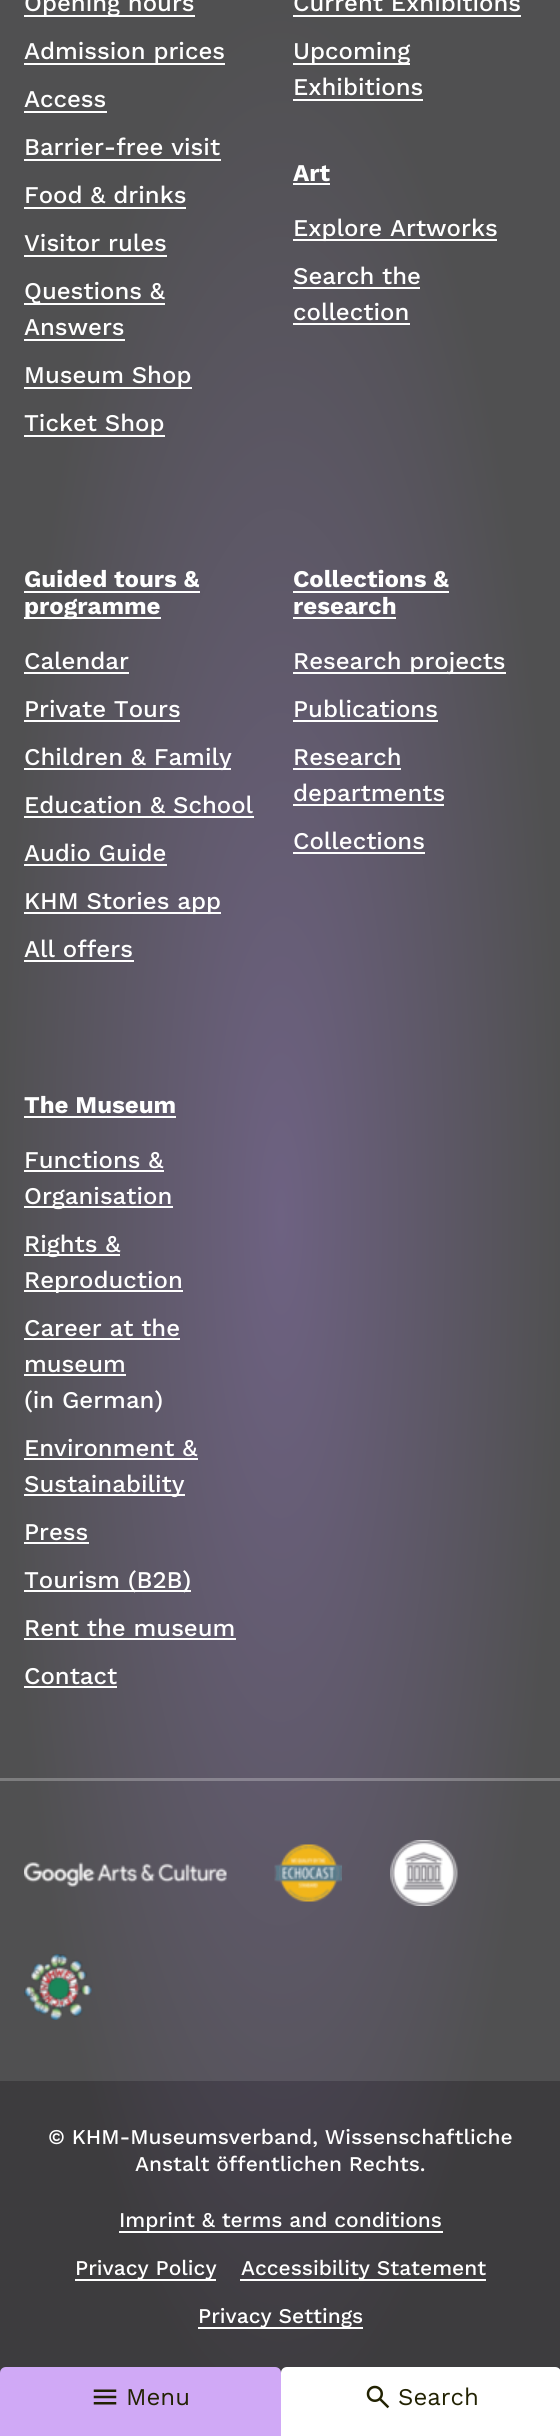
#include <cairo/cairo.h>
#include <math.h>
#include <stddef.h>

static cairo_t *cr;

static void use_color(int r, int g, int b) {
  cairo_set_source_rgb(cr, r / 255.0, g / 255.0, b / 255.0);
}

static void text(double x, double y, const char *s, const char *family, double size, int italic, int bold, int r, int g, int b) {
  cairo_select_font_face(cr, family, italic ? CAIRO_FONT_SLANT_ITALIC : CAIRO_FONT_SLANT_NORMAL,
    bold ? CAIRO_FONT_WEIGHT_BOLD : CAIRO_FONT_WEIGHT_NORMAL);
  cairo_set_font_size(cr, size);
  use_color(r, g, b);
  cairo_move_to(cr, x, y);
  cairo_show_text(cr, s);
}

static void box(double x, double y, double w, double h, int r, int g, int b) {
  use_color(r, g, b);
  cairo_rectangle(cr, x, y, w, h);
  cairo_fill(cr);
}

static void picture(const char *path, double x, double y, double w, double h) {
  cairo_surface_t *image = cairo_image_surface_create_from_png(path);
  cairo_save(cr);
  cairo_set_source_surface(cr, image, x, y);
  cairo_rectangle(cr, x, y, w, h);
  cairo_fill(cr);
  cairo_restore(cr);
  cairo_surface_destroy(image);
}

static void draw(void) {
  cairo_pattern_t *gradient;
  use_color(255, 255, 255);
  cairo_paint(cr);
  gradient = cairo_pattern_create_radial(0, 0, 0, 0, 0, 1);
  cairo_pattern_set_matrix(gradient, &(cairo_matrix_t){1.0 / 281, 0, 0, 1.0 / 1218, -1.0 * 281 / 281, -1.0 * 1218 / 1218});
  cairo_pattern_add_color_stop_rgba(gradient, 0, 0.369, 0.314, 0.455, 1);
  cairo_pattern_add_color_stop_rgba(gradient, 1, 0.239, 0.235, 0.243, 1);
  cairo_set_source(cr, gradient);
  cairo_pattern_destroy(gradient);
  cairo_rectangle(cr, 0, 2081, 560, 292);
  cairo_fill(cr);
  gradient = cairo_pattern_create_radial(0, 0, 0, 0, 0, 1);
  cairo_pattern_set_matrix(gradient, &(cairo_matrix_t){1.0 / 281, 0, 0, 1.0 / 1218, -1.0 * 281 / 281, -1.0 * 1218 / 1218});
  cairo_pattern_add_color_stop_rgba(gradient, 0, 0.431, 0.384, 0.51, 1);
  cairo_pattern_add_color_stop_rgba(gradient, 1, 0.314, 0.314, 0.318, 1);
  cairo_set_source(cr, gradient);
  cairo_pattern_destroy(gradient);
  cairo_rectangle(cr, 0, 0, 560, 2081);
  cairo_fill(cr);
  gradient = cairo_pattern_create_radial(0, 0, 0, 0, 0, 1);
  cairo_pattern_set_matrix(gradient, &(cairo_matrix_t){1.0 / 281, 0, 0, 1.0 / 1218, -1.0 * 281 / 281, -1.0 * 1218 / 1218});
  cairo_pattern_add_color_stop_rgba(gradient, 0, 0.58, 0.545, 0.635, 1);
  cairo_pattern_add_color_stop_rgba(gradient, 1, 0.49, 0.49, 0.494, 1);
  cairo_set_source(cr, gradient);
  cairo_pattern_destroy(gradient);
  cairo_rectangle(cr, 0, 1778, 560, 3);
  cairo_fill(cr);
  box(24, 15, 171, 2, 255, 255, 255);
  box(24, 63, 201, 2, 255, 255, 255);
  box(24, 111, 83, 2, 255, 255, 255);
  box(24, 159, 197, 2, 255, 255, 255);
  box(24, 207, 162, 2, 255, 255, 255);
  box(24, 255, 143, 2, 255, 255, 255);
  box(24, 303, 141, 2, 255, 255, 255);
  box(24, 339, 101, 2, 255, 255, 255);
  box(24, 387, 168, 2, 255, 255, 255);
  box(24, 435, 141, 2, 255, 255, 255);
  box(293, 15, 228, 2, 255, 255, 255);
  box(293, 63, 117, 2, 255, 255, 255);
  box(293, 99, 130, 2, 255, 255, 255);
  box(293, 183, 37, 2, 255, 255, 255);
  box(293, 239, 204, 2, 255, 255, 255);
  box(293, 287, 127, 2, 255, 255, 255);
  box(293, 323, 117, 2, 255, 255, 255);
  box(24, 591, 176, 2, 255, 255, 255);
  box(24, 617, 137, 2, 255, 255, 255);
  box(24, 672, 105, 2, 255, 255, 255);
  box(24, 720, 156, 2, 255, 255, 255);
  box(24, 768, 207, 2, 255, 255, 255);
  box(24, 816, 230, 2, 255, 255, 255);
  box(24, 864, 143, 2, 255, 255, 255);
  box(24, 912, 197, 2, 255, 255, 255);
  box(24, 960, 110, 2, 255, 255, 255);
  box(293, 591, 156, 2, 255, 255, 255);
  box(293, 617, 103, 2, 255, 255, 255);
  box(293, 672, 213, 2, 255, 255, 255);
  box(293, 720, 145, 2, 255, 255, 255);
  box(293, 768, 108, 2, 255, 255, 255);
  box(293, 804, 151, 2, 255, 255, 255);
  box(293, 852, 132, 2, 255, 255, 255);
  box(24, 1116, 152, 2, 255, 255, 255);
  box(24, 1170, 140, 2, 255, 255, 255);
  box(24, 1206, 149, 2, 255, 255, 255);
  box(24, 1254, 96, 2, 255, 255, 255);
  box(24, 1290, 159, 2, 255, 255, 255);
  box(24, 1338, 156, 2, 255, 255, 255);
  box(24, 1374, 102, 2, 255, 255, 255);
  box(24, 1458, 174, 2, 255, 255, 255);
  box(24, 1494, 161, 2, 255, 255, 255);
  box(24, 1542, 65, 2, 255, 255, 255);
  box(24, 1590, 167, 2, 255, 255, 255);
  box(24, 1638, 212, 2, 255, 255, 255);
  box(24, 1686, 93, 2, 255, 255, 255);
  picture("img_01.png", 24, 1862, 203, 25);
  picture("img_02.png", 274, 1844, 68, 58);
  picture("img_03.png", 390, 1840, 68, 66);
  picture("img_04.png", 24, 1954, 68, 66);
  box(119, 2231, 324, 2, 255, 255, 255);
  box(75, 2279, 141, 2, 255, 255, 255);
  box(240, 2279, 246, 2, 255, 255, 255);
  box(198, 2327, 165, 2, 255, 255, 255);
  use_color(208, 169, 246);
  cairo_new_path(cr);
  cairo_move_to(cr, 6, 2367);
  cairo_line_to(cr, 275, 2367);
  cairo_curve_to(cr, 278.5, 2367, 281, 2369.5, 281, 2373);
  cairo_line_to(cr, 281, 2436);
  cairo_line_to(cr, 0, 2436);
  cairo_line_to(cr, 0, 2373);
  cairo_curve_to(cr, 0, 2369.5, 2.5, 2367, 6, 2367);
  cairo_close_path(cr);
  cairo_fill(cr);
  picture("img_05.png", 93, 2389, 24, 16);
  use_color(255, 255, 255);
  cairo_new_path(cr);
  cairo_move_to(cr, 287, 2367);
  cairo_line_to(cr, 555, 2367);
  cairo_curve_to(cr, 558.5, 2367, 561, 2369.5, 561, 2373);
  cairo_line_to(cr, 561, 2436);
  cairo_line_to(cr, 281, 2436);
  cairo_line_to(cr, 281, 2373);
  cairo_curve_to(cr, 281, 2369.5, 283.5, 2367, 287, 2367);
  cairo_close_path(cr);
  cairo_fill(cr);
  picture("img_06.png", 366, 2385, 24, 24);
  text(24, 11, "Opening hours", "Work Sans Medium", 24, 0, 0, 255, 255, 255);
  text(24, 59, "Admission prices", "Work Sans Medium", 24, 0, 0, 255, 255, 255);
  text(24, 107, "Access", "Work Sans Medium", 24, 0, 0, 255, 255, 255);
  text(24, 155, "Barrier-free visit", "Work Sans Medium", 24, 0, 0, 255, 255, 255);
  text(24, 203, "Food & drinks", "Work Sans Medium", 24, 0, 0, 255, 255, 255);
  text(24, 251, "Visitor rules", "Work Sans Medium", 24, 0, 0, 255, 255, 255);
  text(24, 299, "Questions &", "Work Sans Medium", 24, 0, 0, 255, 255, 255);
  text(24, 335, "Answers", "Work Sans Medium", 24, 0, 0, 255, 255, 255);
  text(24, 383, "Museum Shop", "Work Sans Medium", 24, 0, 0, 255, 255, 255);
  text(24, 431, "Ticket Shop", "Work Sans Medium", 24, 0, 0, 255, 255, 255);
  text(293, 11, "Current Exhibitions", "Work Sans Medium", 24, 0, 0, 255, 255, 255);
  text(293, 59, "Upcoming", "Work Sans Medium", 24, 0, 0, 255, 255, 255);
  text(293, 95, "Exhibitions", "Work Sans Medium", 24, 0, 0, 255, 255, 255);
  text(293, 181, "Art", "Work Sans", 24, 0, 1, 255, 255, 255);
  text(293, 236, "Explore Artworks", "Work Sans Medium", 24, 0, 0, 255, 255, 255);
  text(293, 284, "Search the", "Work Sans Medium", 24, 0, 0, 255, 255, 255);
  text(293, 320, "collection", "Work Sans Medium", 24, 0, 0, 255, 255, 255);
  text(24, 587, "Guided tours &", "Work Sans", 24, 0, 1, 255, 255, 255);
  text(24, 614, "programme", "Work Sans", 24, 0, 1, 255, 255, 255);
  text(24, 669, "Calendar", "Work Sans Medium", 24, 0, 0, 255, 255, 255);
  text(24, 717, "Private Tours", "Work Sans Medium", 24, 0, 0, 255, 255, 255);
  text(24, 765, "Children & Family", "Work Sans Medium", 24, 0, 0, 255, 255, 255);
  text(24, 813, "Education & School", "Work Sans Medium", 24, 0, 0, 255, 255, 255);
  text(24, 861, "Audio Guide", "Work Sans Medium", 24, 0, 0, 255, 255, 255);
  text(24, 909, "KHM Stories app", "Work Sans Medium", 24, 0, 0, 255, 255, 255);
  text(24, 957, "All offers", "Work Sans Medium", 24, 0, 0, 255, 255, 255);
  text(293, 587, "Collections &", "Work Sans", 24, 0, 1, 255, 255, 255);
  text(293, 614, "research", "Work Sans", 24, 0, 1, 255, 255, 255);
  text(293, 669, "Research projects", "Work Sans Medium", 24, 0, 0, 255, 255, 255);
  text(293, 717, "Publications", "Work Sans Medium", 24, 0, 0, 255, 255, 255);
  text(293, 765, "Research", "Work Sans Medium", 24, 0, 0, 255, 255, 255);
  text(293, 801, "departments", "Work Sans Medium", 24, 0, 0, 255, 255, 255);
  text(293, 849, "Collections", "Work Sans Medium", 24, 0, 0, 255, 255, 255);
  text(24, 1113, "The Museum", "Work Sans", 24, 0, 1, 255, 255, 255);
  text(24, 1168, "Functions &", "Work Sans Medium", 24, 0, 0, 255, 255, 255);
  text(24, 1204, "Organisation", "Work Sans Medium", 24, 0, 0, 255, 255, 255);
  text(24, 1252, "Rights &", "Work Sans Medium", 24, 0, 0, 255, 255, 255);
  text(24, 1288, "Reproduction", "Work Sans Medium", 24, 0, 0, 255, 255, 255);
  text(24, 1336, "Career at the", "Work Sans Medium", 24, 0, 0, 255, 255, 255);
  text(24, 1372, "museum", "Work Sans Medium", 24, 0, 0, 255, 255, 255);
  text(24, 1408, "(in German)", "Work Sans Medium", 24, 0, 0, 255, 255, 255);
  text(24, 1456, "Environment &", "Work Sans Medium", 24, 0, 0, 255, 255, 255);
  text(24, 1492, "Sustainability", "Work Sans Medium", 24, 0, 0, 255, 255, 255);
  text(24, 1540, "Press", "Work Sans Medium", 24, 0, 0, 255, 255, 255);
  text(24, 1588, "Tourism (B2B)", "Work Sans Medium", 24, 0, 0, 255, 255, 255);
  text(24, 1636, "Rent the museum", "Work Sans Medium", 24, 0, 0, 255, 255, 255);
  text(24, 1684, "Contact", "Work Sans Medium", 24, 0, 0, 255, 255, 255);
  text(48, 2144, "© KHM-Museumsverband, Wissenschaftliche", "Work Sans Medium", 21, 0, 0, 255, 255, 255);
  text(135, 2171, "Anstalt öffentlichen Rechts.", "Work Sans Medium", 21, 0, 0, 255, 255, 255);
  text(119, 2227, "Imprint & terms and conditions", "Work Sans Medium", 21, 0, 0, 255, 255, 255);
  text(75, 2275, "Privacy Policy", "Work Sans Medium", 21, 0, 0, 255, 255, 255);
  text(241, 2275, "Accessibility Statement", "Work Sans Medium", 21, 0, 0, 255, 255, 255);
  text(198, 2323, "Privacy Settings", "Work Sans Medium", 21, 0, 0, 255, 255, 255);
  text(126, 2405, "Menu", "Work Sans", 24, 0, 0, 34, 34, 2);
  text(398, 2405, "Search", "Work Sans", 24, 0, 0, 34, 34, 2);
}

int main(void) {
  cairo_surface_t *surface = cairo_image_surface_create(CAIRO_FORMAT_RGB24, 560, 2436);
  cr = cairo_create(surface);
  cairo_font_options_t *options = cairo_font_options_create();
  cairo_font_options_set_hint_metrics(options, CAIRO_HINT_METRICS_OFF);
  cairo_font_options_set_hint_style(options, CAIRO_HINT_STYLE_NONE);
  cairo_set_font_options(cr, options);
  cairo_set_miter_limit(cr, 4);
  draw();
  cairo_surface_write_to_png(surface, "out.png");
  cairo_font_options_destroy(options);
  cairo_destroy(cr);
  cairo_surface_destroy(surface);
  return 0;
}
